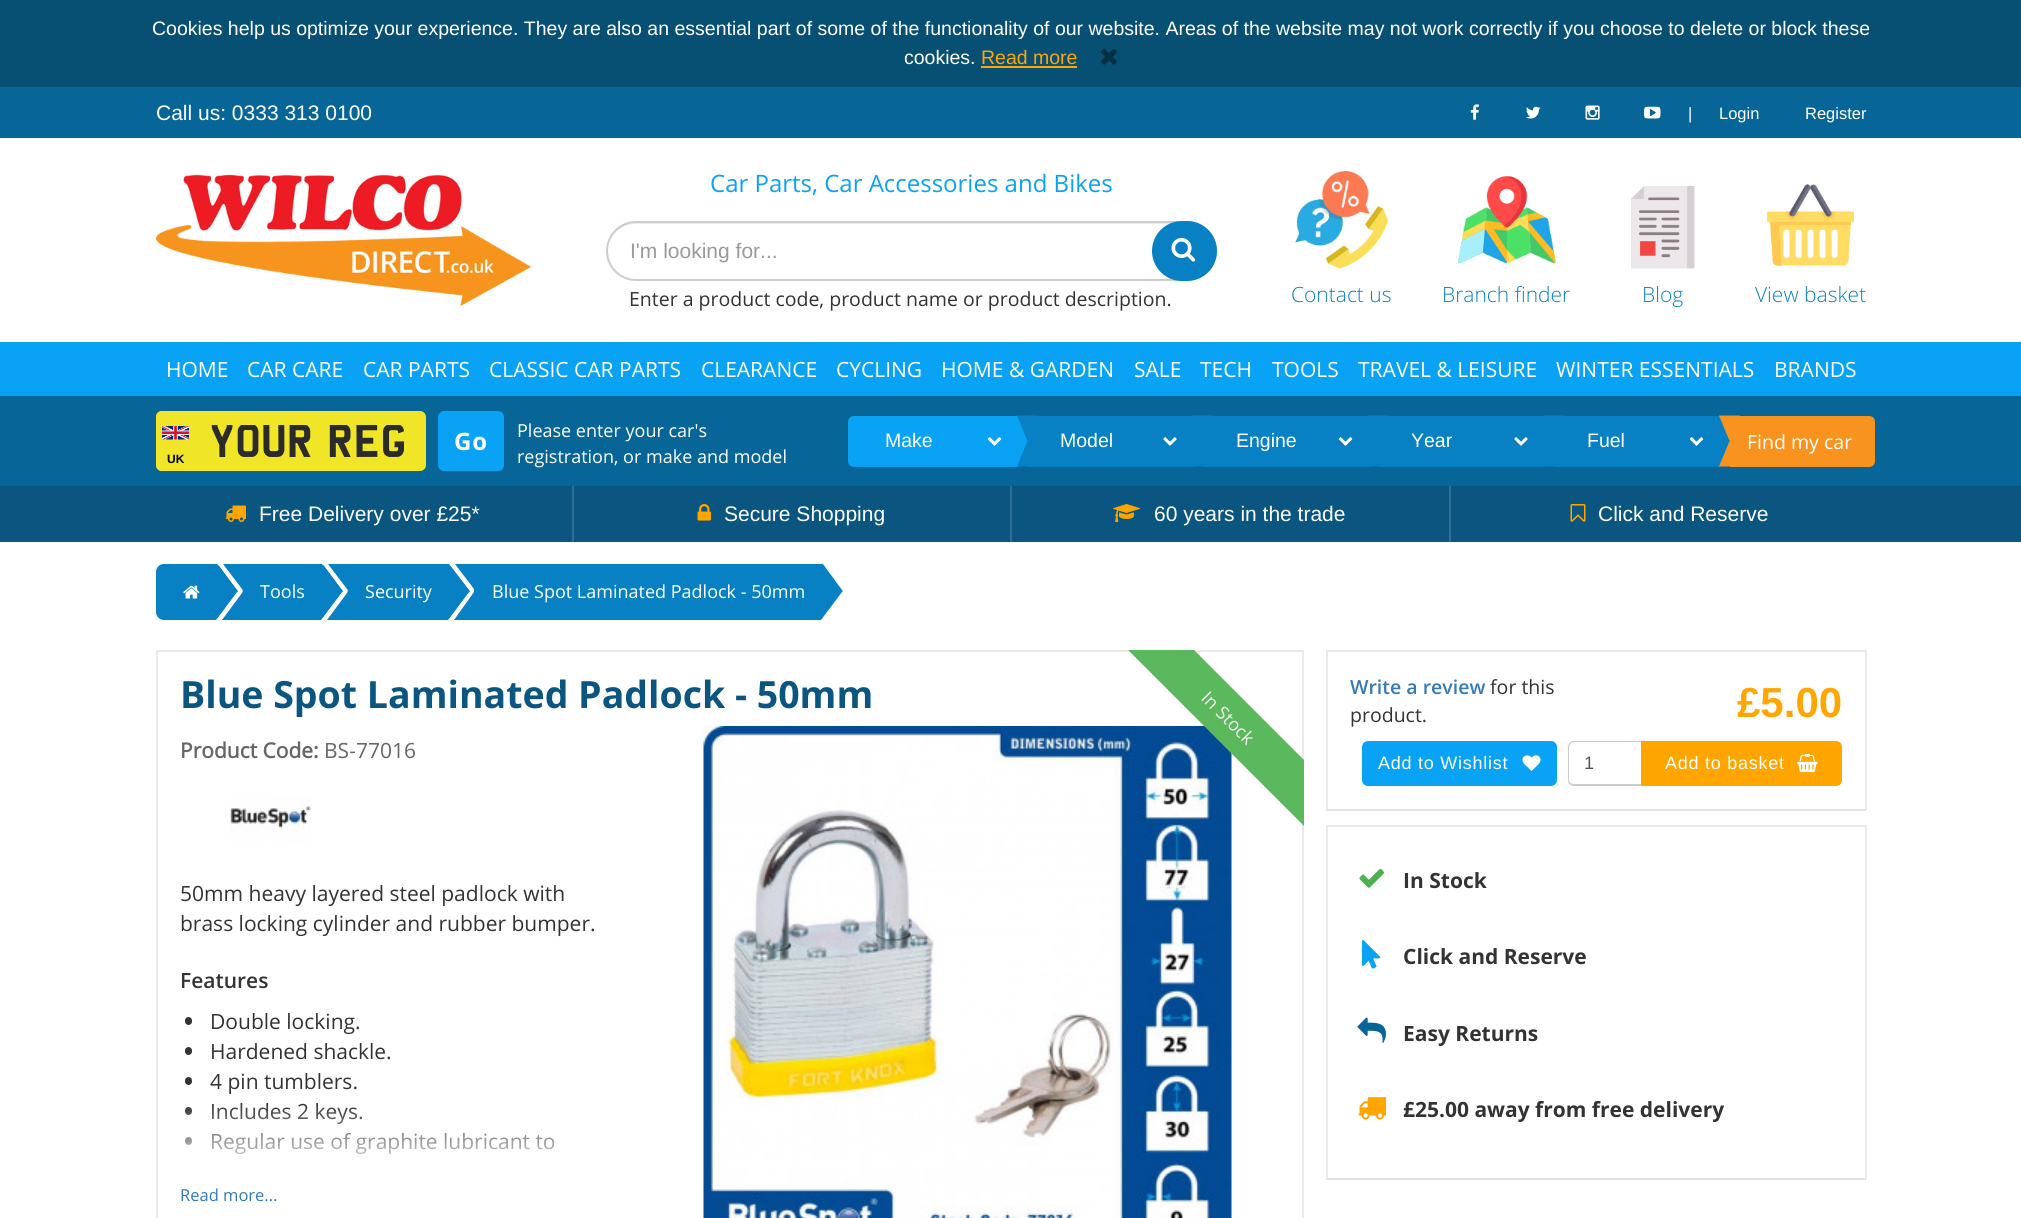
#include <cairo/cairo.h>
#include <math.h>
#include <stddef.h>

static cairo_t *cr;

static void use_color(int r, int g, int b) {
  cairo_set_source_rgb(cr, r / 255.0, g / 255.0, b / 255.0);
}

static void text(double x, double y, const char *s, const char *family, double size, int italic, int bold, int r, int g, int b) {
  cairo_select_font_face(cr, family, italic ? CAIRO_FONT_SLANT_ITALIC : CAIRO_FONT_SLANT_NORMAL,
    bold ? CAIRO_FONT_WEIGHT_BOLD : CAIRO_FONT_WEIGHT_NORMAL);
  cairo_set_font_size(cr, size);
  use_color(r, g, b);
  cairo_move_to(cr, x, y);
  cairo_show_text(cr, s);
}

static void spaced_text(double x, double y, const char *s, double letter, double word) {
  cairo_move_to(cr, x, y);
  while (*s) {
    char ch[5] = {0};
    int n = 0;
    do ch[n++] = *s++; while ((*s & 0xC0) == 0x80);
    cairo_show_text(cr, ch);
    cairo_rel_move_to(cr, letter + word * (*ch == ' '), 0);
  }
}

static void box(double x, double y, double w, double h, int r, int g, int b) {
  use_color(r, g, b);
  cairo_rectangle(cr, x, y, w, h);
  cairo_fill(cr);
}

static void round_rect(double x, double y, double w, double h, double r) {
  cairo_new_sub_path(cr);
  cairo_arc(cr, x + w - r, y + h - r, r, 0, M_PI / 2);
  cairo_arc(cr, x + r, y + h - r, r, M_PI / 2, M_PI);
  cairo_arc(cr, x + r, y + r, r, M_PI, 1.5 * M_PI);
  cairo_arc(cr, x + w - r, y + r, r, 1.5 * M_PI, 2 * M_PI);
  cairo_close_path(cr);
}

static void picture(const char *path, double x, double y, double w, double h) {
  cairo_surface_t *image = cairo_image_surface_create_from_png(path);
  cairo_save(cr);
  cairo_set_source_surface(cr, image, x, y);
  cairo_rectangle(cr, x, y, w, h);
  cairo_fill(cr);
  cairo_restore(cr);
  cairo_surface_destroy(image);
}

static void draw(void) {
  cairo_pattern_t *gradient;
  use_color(255, 255, 255);
  cairo_paint(cr);
  box(0, 0, 2021, 87, 8, 79, 116);
  box(981, 66, 96, 2, 255, 166, 3);
  picture("img_01.png", 1101, 48, 16, 17);
  box(0, 87, 2021, 51, 7, 101, 152);
  picture("img_02.png", 1470, 104, 9, 16);
  picture("img_03.png", 1526, 106, 15, 13);
  picture("img_04.png", 1585, 105, 15, 15);
  picture("img_05.png", 1644, 106, 17, 13);
  picture("img_06.png", 156, 174, 375, 132);
  use_color(236, 236, 236);
  cairo_new_path(cr);
  cairo_move_to(cr, 636, 224);
  cairo_line_to(cr, 1186, 224);
  cairo_curve_to(cr, 1202, 224, 1215, 236, 1215, 251);
  cairo_curve_to(cr, 1215, 235, 1202, 222, 1186, 222);
  cairo_line_to(cr, 636, 222);
  cairo_curve_to(cr, 621, 222, 608, 235, 608, 251);
  cairo_curve_to(cr, 608, 236, 620, 224, 636, 224);
  cairo_close_path(cr);
  cairo_fill(cr);
  round_rect(607, 222, 609, 58, 29);
  use_color(204, 204, 204);
  cairo_stroke(cr);
  use_color(7, 129, 195);
  round_rect(1153, 222, 63, 58, 29);
  cairo_fill_preserve(cr);
  cairo_stroke(cr);
  picture("img_07.png", 1171, 238, 25, 24);
  picture("img_08.png", 1295, 171, 94, 98);
  picture("img_09.png", 1458, 175, 98, 89);
  picture("img_10.png", 1631, 186, 64, 83);
  picture("img_11.png", 1767, 184, 87, 82);
  box(0, 342, 2021, 54, 9, 162, 244);
  box(0, 396, 2021, 90, 7, 101, 152);
  use_color(241, 229, 40);
  round_rect(156, 411, 270, 60, 6);
  cairo_fill(cr);
  cairo_new_path(cr);
  cairo_move_to(cr, 162, 411);
  cairo_line_to(cr, 195, 411);
  cairo_line_to(cr, 195, 471);
  cairo_line_to(cr, 162, 471);
  cairo_curve_to(cr, 158.5, 471, 156, 468.5, 156, 465);
  cairo_line_to(cr, 156, 417);
  cairo_curve_to(cr, 156, 413.5, 158.5, 411, 162, 411);
  cairo_close_path(cr);
  cairo_fill(cr);
  picture("img_12.png", 162, 426, 27, 14);
  use_color(9, 162, 244);
  round_rect(439, 412, 64, 58, 5);
  cairo_fill_preserve(cr);
  cairo_stroke(cr);
  cairo_new_path(cr);
  cairo_move_to(cr, 854, 416);
  cairo_line_to(cr, 1019, 416);
  cairo_line_to(cr, 1019, 467);
  cairo_line_to(cr, 854, 467);
  cairo_curve_to(cr, 850.5, 467, 848, 464.5, 848, 461);
  cairo_line_to(cr, 848, 422);
  cairo_curve_to(cr, 848, 418.5, 850.5, 416, 854, 416);
  cairo_close_path(cr);
  cairo_fill(cr);
  cairo_new_path(cr);
  cairo_move_to(cr, 1018, 466);
  cairo_line_to(cr, 1018, 416);
  cairo_line_to(cr, 1029, 441);
  cairo_close_path(cr);
  cairo_fill(cr);
  picture("img_13.png", 987, 437, 15, 9);
  box(1038, 416, 156, 51, 7, 129, 195);
  cairo_new_path(cr);
  cairo_move_to(cr, 1017, 415.5);
  cairo_line_to(cr, 1038, 415.5);
  cairo_line_to(cr, 1027.5, 441);
  cairo_close_path(cr);
  cairo_fill(cr);
  box(1028, 416, 10, 51, 7, 129, 195);
  cairo_new_path(cr);
  cairo_move_to(cr, 1038, 466.5);
  cairo_line_to(cr, 1017, 466.5);
  cairo_line_to(cr, 1027.5, 441);
  cairo_close_path(cr);
  cairo_fill(cr);
  cairo_new_path(cr);
  cairo_move_to(cr, 1194, 466);
  cairo_line_to(cr, 1194, 416);
  cairo_line_to(cr, 1204, 441);
  cairo_close_path(cr);
  cairo_fill(cr);
  picture("img_14.png", 1163, 437, 14, 9);
  box(1214, 416, 156, 51, 7, 129, 195);
  cairo_new_path(cr);
  cairo_move_to(cr, 1192.5, 415.5);
  cairo_line_to(cr, 1213.5, 415.5);
  cairo_line_to(cr, 1203, 441);
  cairo_close_path(cr);
  cairo_fill(cr);
  box(1203, 416, 11, 51, 7, 129, 195);
  cairo_new_path(cr);
  cairo_move_to(cr, 1213.5, 466.5);
  cairo_line_to(cr, 1192.5, 466.5);
  cairo_line_to(cr, 1203, 441);
  cairo_close_path(cr);
  cairo_fill(cr);
  cairo_new_path(cr);
  cairo_move_to(cr, 1370, 466);
  cairo_line_to(cr, 1370, 416);
  cairo_line_to(cr, 1380, 441);
  cairo_close_path(cr);
  cairo_fill(cr);
  picture("img_15.png", 1338, 437, 15, 9);
  box(1389, 416, 156, 51, 7, 129, 195);
  cairo_new_path(cr);
  cairo_move_to(cr, 1368, 415.5);
  cairo_line_to(cr, 1389, 415.5);
  cairo_line_to(cr, 1378.5, 441);
  cairo_close_path(cr);
  cairo_fill(cr);
  box(1379, 416, 10, 51, 7, 129, 195);
  cairo_new_path(cr);
  cairo_move_to(cr, 1389, 466.5);
  cairo_line_to(cr, 1368, 466.5);
  cairo_line_to(cr, 1378.5, 441);
  cairo_close_path(cr);
  cairo_fill(cr);
  cairo_new_path(cr);
  cairo_move_to(cr, 1545, 466);
  cairo_line_to(cr, 1545, 416);
  cairo_line_to(cr, 1556, 441);
  cairo_close_path(cr);
  cairo_fill(cr);
  picture("img_14.png", 1514, 437, 14, 9);
  box(1565, 416, 156, 51, 7, 129, 195);
  cairo_new_path(cr);
  cairo_move_to(cr, 1543.5, 415.5);
  cairo_line_to(cr, 1564.5, 415.5);
  cairo_line_to(cr, 1554, 441);
  cairo_close_path(cr);
  cairo_fill(cr);
  box(1554, 416, 11, 51, 7, 129, 195);
  cairo_new_path(cr);
  cairo_move_to(cr, 1564.5, 466.5);
  cairo_line_to(cr, 1543.5, 466.5);
  cairo_line_to(cr, 1554, 441);
  cairo_close_path(cr);
  cairo_fill(cr);
  cairo_new_path(cr);
  cairo_move_to(cr, 1720, 466);
  cairo_line_to(cr, 1720, 416);
  cairo_line_to(cr, 1731, 441);
  cairo_close_path(cr);
  cairo_fill(cr);
  picture("img_15.png", 1689, 437, 15, 9);
  use_color(247, 147, 30);
  cairo_new_path(cr);
  cairo_move_to(cr, 1740, 416);
  cairo_line_to(cr, 1869, 416);
  cairo_curve_to(cr, 1872.5, 416, 1875, 418.5, 1875, 422);
  cairo_line_to(cr, 1875, 461);
  cairo_curve_to(cr, 1875, 464.5, 1872.5, 467, 1869, 467);
  cairo_line_to(cr, 1740, 467);
  cairo_close_path(cr);
  cairo_fill(cr);
  cairo_new_path(cr);
  cairo_move_to(cr, 1719, 415.5);
  cairo_line_to(cr, 1740, 415.5);
  cairo_line_to(cr, 1729.5, 441);
  cairo_close_path(cr);
  cairo_fill(cr);
  box(1730, 416, 10, 51, 247, 147, 30);
  cairo_new_path(cr);
  cairo_move_to(cr, 1740, 466.5);
  cairo_line_to(cr, 1719, 466.5);
  cairo_line_to(cr, 1729.5, 441);
  cairo_close_path(cr);
  cairo_fill(cr);
  box(0, 486, 2021, 56, 10, 86, 128);
  box(572, 486, 2, 56, 47, 111, 147);
  picture("img_16.png", 225, 505, 21, 17);
  box(1010, 486, 2, 56, 47, 111, 147);
  picture("img_17.png", 697, 504, 14, 17);
  box(1449, 486, 2, 56, 47, 111, 147);
  picture("img_18.png", 1113, 504, 27, 18);
  picture("img_19.png", 1570, 504, 16, 18);
  use_color(7, 129, 195);
  cairo_new_path(cr);
  cairo_move_to(cr, 164, 564);
  cairo_line_to(cr, 215, 564);
  cairo_line_to(cr, 215, 620);
  cairo_line_to(cr, 164, 620);
  cairo_curve_to(cr, 159.5, 620, 156, 616.5, 156, 612);
  cairo_line_to(cr, 156, 572);
  cairo_curve_to(cr, 156, 567.5, 159.5, 564, 164, 564);
  cairo_close_path(cr);
  cairo_fill(cr);
  picture("img_20.png", 183, 585, 17, 14);
  cairo_new_path(cr);
  cairo_move_to(cr, 223, 564);
  cairo_line_to(cr, 320, 564);
  cairo_line_to(cr, 320, 620);
  cairo_line_to(cr, 223, 620);
  cairo_curve_to(cr, 218.5, 620, 215, 616.5, 215, 612);
  cairo_line_to(cr, 215, 572);
  cairo_curve_to(cr, 215, 567.5, 218.5, 564, 223, 564);
  cairo_close_path(cr);
  cairo_fill(cr);
  use_color(255, 255, 255);
  cairo_new_path(cr);
  cairo_move_to(cr, 216, 620);
  cairo_line_to(cr, 222, 620);
  cairo_line_to(cr, 242, 593);
  cairo_curve_to(cr, 243, 592, 243, 590, 242, 589);
  cairo_line_to(cr, 223, 564);
  cairo_line_to(cr, 218, 564);
  cairo_line_to(cr, 237, 590);
  cairo_curve_to(cr, 238, 591, 238, 592, 237, 592);
  cairo_close_path(cr);
  cairo_fill(cr);
  cairo_new_path(cr);
  cairo_move_to(cr, 216, 620);
  cairo_line_to(cr, 221, 620);
  cairo_line_to(cr, 241, 593);
  cairo_line_to(cr, 241, 589);
  cairo_line_to(cr, 222, 564);
  cairo_line_to(cr, 218, 564);
  cairo_line_to(cr, 237, 590);
  cairo_curve_to(cr, 238, 591, 238, 592, 237, 592);
  cairo_close_path(cr);
  cairo_fill(cr);
  use_color(7, 129, 195);
  cairo_new_path(cr);
  cairo_move_to(cr, 214, 620);
  cairo_curve_to(cr, 203, 604, 202, 580, 212, 564);
  cairo_line_to(cr, 217, 564);
  cairo_line_to(cr, 237, 590);
  cairo_curve_to(cr, 238, 591, 238, 592, 237, 592);
  cairo_line_to(cr, 216, 620);
  cairo_close_path(cr);
  cairo_fill(cr);
  cairo_new_path(cr);
  cairo_move_to(cr, 328, 564);
  cairo_line_to(cr, 447, 564);
  cairo_line_to(cr, 447, 620);
  cairo_line_to(cr, 328, 620);
  cairo_curve_to(cr, 323.5, 620, 320, 616.5, 320, 612);
  cairo_line_to(cr, 320, 572);
  cairo_curve_to(cr, 320, 567.5, 323.5, 564, 328, 564);
  cairo_close_path(cr);
  cairo_fill(cr);
  use_color(255, 255, 255);
  cairo_new_path(cr);
  cairo_move_to(cr, 321, 620);
  cairo_line_to(cr, 327, 620);
  cairo_line_to(cr, 347, 593);
  cairo_curve_to(cr, 348, 592, 348, 590, 347, 589);
  cairo_line_to(cr, 328, 564);
  cairo_line_to(cr, 323, 564);
  cairo_line_to(cr, 342, 590);
  cairo_curve_to(cr, 343, 591, 343, 592, 342, 592);
  cairo_close_path(cr);
  cairo_fill(cr);
  cairo_new_path(cr);
  cairo_move_to(cr, 321, 620);
  cairo_line_to(cr, 325, 620);
  cairo_line_to(cr, 345, 593);
  cairo_curve_to(cr, 346, 592, 346, 590, 345, 589);
  cairo_line_to(cr, 326, 564);
  cairo_line_to(cr, 323, 564);
  cairo_line_to(cr, 342, 590);
  cairo_curve_to(cr, 343, 591, 343, 592, 342, 592);
  cairo_close_path(cr);
  cairo_fill(cr);
  use_color(7, 129, 195);
  cairo_new_path(cr);
  cairo_move_to(cr, 319, 620);
  cairo_curve_to(cr, 308, 604, 307, 580, 317, 564);
  cairo_line_to(cr, 322, 564);
  cairo_line_to(cr, 342, 590);
  cairo_curve_to(cr, 343, 591, 343, 592, 342, 592);
  cairo_line_to(cr, 321, 620);
  cairo_close_path(cr);
  cairo_fill(cr);
  cairo_new_path(cr);
  cairo_move_to(cr, 455, 564);
  cairo_line_to(cr, 821, 564);
  cairo_line_to(cr, 821, 620);
  cairo_line_to(cr, 455, 620);
  cairo_curve_to(cr, 450.5, 620, 447, 616.5, 447, 612);
  cairo_line_to(cr, 447, 572);
  cairo_curve_to(cr, 447, 567.5, 450.5, 564, 455, 564);
  cairo_close_path(cr);
  cairo_fill(cr);
  use_color(255, 255, 255);
  cairo_new_path(cr);
  cairo_move_to(cr, 448, 620);
  cairo_line_to(cr, 454, 620);
  cairo_line_to(cr, 474, 592);
  cairo_line_to(cr, 474, 589);
  cairo_line_to(cr, 455, 564);
  cairo_line_to(cr, 449, 564);
  cairo_line_to(cr, 469, 590);
  cairo_curve_to(cr, 470, 591, 470, 592, 469, 592);
  cairo_close_path(cr);
  cairo_fill(cr);
  cairo_new_path(cr);
  cairo_move_to(cr, 448, 620);
  cairo_line_to(cr, 452, 620);
  cairo_line_to(cr, 472, 593);
  cairo_curve_to(cr, 473, 592, 473, 590, 472, 589);
  cairo_line_to(cr, 453, 564);
  cairo_line_to(cr, 449, 564);
  cairo_line_to(cr, 469, 590);
  cairo_curve_to(cr, 470, 591, 470, 592, 469, 592);
  cairo_close_path(cr);
  cairo_fill(cr);
  use_color(7, 129, 195);
  cairo_new_path(cr);
  cairo_move_to(cr, 446, 620);
  cairo_curve_to(cr, 435, 604, 434, 580, 443, 564);
  cairo_line_to(cr, 449, 564);
  cairo_line_to(cr, 469, 590);
  cairo_curve_to(cr, 470, 591, 470, 592, 469, 592);
  cairo_line_to(cr, 448, 620);
  cairo_close_path(cr);
  cairo_fill(cr);
  cairo_new_path(cr);
  cairo_move_to(cr, 819, 620);
  cairo_curve_to(cr, 808, 604, 807, 580, 817, 564);
  cairo_line_to(cr, 823, 564);
  cairo_line_to(cr, 842, 590);
  cairo_curve_to(cr, 843, 591, 843, 592, 842, 592);
  cairo_line_to(cr, 821, 620);
  cairo_close_path(cr);
  cairo_fill(cr);
  box(156, 650, 1148, 2, 234, 234, 234);
  box(1302, 650, 2, 568, 234, 234, 234);
  box(156, 650, 2, 568, 234, 234, 234);
  picture("img_21.png", 230, 796, 81, 48);
  use_color(51, 51, 51);
  round_rect(185, 1017, 7, 8, 3.5);
  cairo_fill(cr);
  round_rect(185, 1047, 7, 8, 3.5);
  cairo_fill(cr);
  round_rect(185, 1077, 7, 8, 3.5);
  cairo_fill(cr);
  round_rect(185, 1107, 7, 8, 3.5);
  cairo_fill(cr);
  round_rect(185, 1137, 7, 8, 3.5);
  cairo_fill(cr);
  picture("img_22.png", 703, 726, 529, 492);
  cairo_save(cr);
  cairo_rectangle(cr, 156, 650, 1148, 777);
  cairo_clip(cr);
  use_color(92, 184, 92);
  cairo_new_path(cr);
  cairo_move_to(cr, 1139, 595);
  cairo_line_to(cr, 1351, 807);
  cairo_line_to(cr, 1318, 840);
  cairo_line_to(cr, 1106, 628);
  cairo_close_path(cr);
  cairo_fill(cr);
  cairo_restore(cr);
  box(1326, 650, 540, 2, 234, 234, 234);
  box(1865, 650, 2, 160, 234, 234, 234);
  box(1326, 809, 540, 2, 226, 226, 226);
  box(1326, 650, 2, 160, 234, 234, 234);
  use_color(9, 162, 244);
  round_rect(1363, 742, 193, 43, 5);
  cairo_fill_preserve(cr);
  cairo_stroke(cr);
  picture("img_23.png", 1522, 755, 19, 16);
  use_color(204, 204, 204);
  cairo_set_fill_rule(cr, CAIRO_FILL_RULE_EVEN_ODD);
  cairo_new_path(cr);
  cairo_move_to(cr, 1574, 741);
  cairo_line_to(cr, 1642, 741);
  cairo_line_to(cr, 1642, 786);
  cairo_line_to(cr, 1574, 786);
  cairo_curve_to(cr, 1570, 786, 1568, 783, 1568, 780);
  cairo_line_to(cr, 1568, 747);
  cairo_curve_to(cr, 1568, 744, 1570, 741, 1574, 741);
  cairo_close_path(cr);
  cairo_move_to(cr, 1574, 742);
  cairo_line_to(cr, 1642, 742);
  cairo_line_to(cr, 1642, 784);
  cairo_line_to(cr, 1574, 784);
  cairo_curve_to(cr, 1571, 784, 1569, 782, 1569, 780);
  cairo_line_to(cr, 1569, 747);
  cairo_curve_to(cr, 1569, 745, 1571, 742, 1574, 742);
  cairo_close_path(cr);
  cairo_fill(cr);
  use_color(255, 165, 0);
  cairo_new_path(cr);
  cairo_move_to(cr, 1642, 742);
  cairo_line_to(cr, 1836, 742);
  cairo_curve_to(cr, 1839, 742, 1841, 744, 1841, 747);
  cairo_line_to(cr, 1841, 780);
  cairo_curve_to(cr, 1841, 783, 1839, 785, 1836, 785);
  cairo_line_to(cr, 1642, 785);
  cairo_close_path(cr);
  cairo_fill_preserve(cr);
  cairo_stroke(cr);
  picture("img_24.png", 1797, 754, 21, 19);
  box(1326, 825, 540, 2, 234, 234, 234);
  box(1865, 825, 2, 354, 234, 234, 234);
  box(1326, 1178, 540, 2, 226, 226, 226);
  box(1326, 825, 2, 354, 234, 234, 234);
  picture("img_25.png", 1359, 868, 26, 20);
  picture("img_26.png", 1362, 940, 19, 29);
  picture("img_27.png", 1357, 1017, 29, 26);
  picture("img_28.png", 1358, 1097, 28, 23);
  text(152, 35, "Cookies help us optimize your experience. They are also an essential part of some of the functionality of our website. Areas of the website may not work correctly if you choose to delete or block these", "Liberation Sans", 19.5, 0, 0, 255, 255, 255);
  text(904, 64, "cookies.", "Liberation Sans", 19.5, 0, 0, 255, 255, 255);
  text(981, 64, "Read more", "Liberation Sans", 19.5, 0, 0, 255, 166, 3);
  text(156, 120, "Call us: 0333 313 0100", "Liberation Sans", 21, 0, 0, 255, 255, 255);
  text(1688, 119, "|", "Liberation Sans", 16.5, 0, 0, 255, 255, 255);
  text(1719, 119, "Login", "Liberation Sans", 16.5, 0, 0, 255, 255, 255);
  text(1805, 119, "Register", "Liberation Sans", 16.5, 0, 0, 255, 255, 255);
  text(710, 192, "Car Parts, Car Accessories and Bikes", "Open Sans", 24, 0, 0, 9, 162, 244);
  text(630, 258, "I'm looking for...", "Liberation Sans", 21, 0, 0, 153, 153, 153);
  text(629, 306, "Enter a product code, product name or product description.", "Open Sans", 19.5, 0, 0, 51, 51, 51);
  text(1291, 302, "Contact us", "Open Sans Light", 21, 0, 0, 7, 129, 195);
  text(1442, 302, "Branch finder", "Open Sans Light", 21, 0, 0, 7, 129, 195);
  text(1642, 302, "Blog", "Open Sans Light", 21, 0, 0, 7, 129, 195);
  text(1755, 302, "View basket", "Open Sans Light", 21, 0, 0, 7, 129, 195);
  text(166, 377, "HOME", "Open Sans", 21, 0, 0, 255, 255, 255);
  text(247, 377, "CAR CARE", "Open Sans", 21, 0, 0, 255, 255, 255);
  text(363, 377, "CAR PARTS", "Open Sans", 21, 0, 0, 255, 255, 255);
  text(489, 377, "CLASSIC CAR PARTS", "Open Sans", 21, 0, 0, 255, 255, 255);
  text(701, 377, "CLEARANCE", "Open Sans", 21, 0, 0, 255, 255, 255);
  text(836, 377, "CYCLING", "Open Sans", 21, 0, 0, 255, 255, 255);
  text(941, 377, "HOME & GARDEN", "Open Sans", 21, 0, 0, 255, 255, 255);
  text(1134, 377, "SALE", "Open Sans", 21, 0, 0, 255, 255, 255);
  text(1200, 377, "TECH", "Open Sans", 21, 0, 0, 255, 255, 255);
  text(1272, 377, "TOOLS", "Open Sans", 21, 0, 0, 255, 255, 255);
  text(1358, 377, "TRAVEL & LEISURE", "Open Sans", 21, 0, 0, 255, 255, 255);
  text(1556, 377, "WINTER ESSENTIALS", "Open Sans", 21, 0, 0, 255, 255, 255);
  text(1774, 377, "BRANDS", "Open Sans", 21, 0, 0, 255, 255, 255);
  cairo_save(cr);
  cairo_set_fill_rule(cr, CAIRO_FILL_RULE_WINDING);
  cairo_rectangle(cr, 209, 425, 217, 34);
  cairo_clip(cr);
  text(209, 457, "YOUR REG", "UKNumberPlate", 48, 0, 0, 43, 43, 43);
  cairo_restore(cr);
  text(167, 463, "UK", "Liberation Sans", 12, 0, 1, 0, 0, 0);
  cairo_select_font_face(cr, "Open Sans", CAIRO_FONT_SLANT_NORMAL, CAIRO_FONT_WEIGHT_BOLD);
  cairo_set_font_size(cr, 24);
  use_color(255, 255, 255);
  spaced_text(454, 450, "Go", 0.75, 0);
  text(517, 437, "Please enter your car's", "Open Sans", 18, 0, 0, 255, 255, 255);
  text(517, 463, "registration, or make and model", "Open Sans", 18, 0, 0, 255, 255, 255);
  text(885, 447, "Make", "Liberation Sans", 19.5, 0, 0, 255, 255, 255);
  text(1060, 447, "Model", "Liberation Sans", 19.5, 0, 0, 255, 255, 255);
  text(1236, 447, "Engine", "Liberation Sans", 19.5, 0, 0, 255, 255, 255);
  text(1411, 447, "Year", "Liberation Sans", 19.5, 0, 0, 255, 255, 255);
  text(1587, 447, "Fuel", "Liberation Sans", 19.5, 0, 0, 255, 255, 255);
  text(1747, 449, "Find my car", "Open Sans", 19.5, 0, 0, 255, 255, 255);
  text(259, 521, "Free Delivery over £25*", "Liberation Sans", 21, 0, 0, 255, 255, 255);
  text(724, 521, "Secure Shopping", "Liberation Sans", 21, 0, 0, 255, 255, 255);
  text(1154, 521, "60 years in the trade", "Liberation Sans", 21, 0, 0, 255, 255, 255);
  text(1598, 521, "Click and Reserve", "Liberation Sans", 21, 0, 0, 255, 255, 255);
  text(260, 598, "Tools", "Open Sans", 18, 0, 0, 255, 255, 255);
  text(365, 598, "Security", "Open Sans", 18, 0, 0, 255, 255, 255);
  text(492, 598, "Blue Spot Laminated Padlock - 50mm", "Open Sans", 18, 0, 0, 255, 255, 255);
  text(180, 708, "Blue Spot Laminated Padlock - 50mm", "Open Sans", 37.5, 0, 1, 10, 86, 128);
  text(180, 758, "Product Code:", "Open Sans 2", 21, 0, 1, 102, 102, 102);
  text(324, 758, "BS-77016", "Open Sans", 21, 0, 0, 102, 102, 102);
  text(180, 901, "50mm heavy layered steel padlock with", "Open Sans", 21, 0, 0, 51, 51, 51);
  text(180, 931, "brass locking cylinder and rubber bumper.", "Open Sans", 21, 0, 0, 51, 51, 51);
  text(180, 988, "Features", "Open Sans SemiBold", 21, 0, 0, 51, 51, 51);
  text(210, 1029, "Double locking.", "Open Sans", 21, 0, 0, 51, 51, 51);
  text(210, 1059, "Hardened shackle.", "Open Sans", 21, 0, 0, 51, 51, 51);
  text(210, 1089, "4 pin tumblers.", "Open Sans", 21, 0, 0, 51, 51, 51);
  text(210, 1119, "Includes 2 keys.", "Open Sans", 21, 0, 0, 51, 51, 51);
  text(210, 1149, "Regular use of graphite lubricant to", "Open Sans", 21, 0, 0, 51, 51, 51);
  gradient = cairo_pattern_create_linear(396, 1103, 396, 1178);
  cairo_pattern_add_color_stop_rgba(gradient, 0, 1, 1, 1, 0);
  cairo_pattern_add_color_stop_rgba(gradient, 1, 1, 1, 1, 1);
  cairo_set_source(cr, gradient);
  cairo_pattern_destroy(gradient);
  cairo_rectangle(cr, 185, 1105, 370, 50);
  cairo_fill(cr);
  text(180, 1201, "Read more...", "Open Sans", 16.5, 0, 0, 51, 122, 183);
  cairo_save(cr);
  cairo_translate(cr, 1200, 699);
  cairo_rotate(cr, 45 * M_PI / 180);
  text(0, 0, "In Stock", "Open Sans", 18, 0, 0, 240, 240, 240);
  cairo_restore(cr);
  text(1350, 694, "Write a review", "Open Sans SemiBold", 19.5, 0, 0, 51, 122, 183);
  text(1490, 694, "for this", "Open Sans", 19.5, 0, 0, 51, 51, 51);
  text(1350, 722, "product.", "Open Sans", 19.5, 0, 0, 51, 51, 51);
  text(1737, 717, "£5.00", "Liberation Sans", 42, 0, 1, 255, 166, 3);
  cairo_select_font_face(cr, "Liberation Sans", CAIRO_FONT_SLANT_NORMAL, CAIRO_FONT_WEIGHT_NORMAL);
  cairo_set_font_size(cr, 18);
  use_color(255, 255, 255);
  spaced_text(1378, 769, "Add to Wishlist", 0.75, 0);
  text(1584, 769, "1", "Liberation Sans", 18, 0, 0, 85, 85, 85);
  use_color(255, 255, 255);
  spaced_text(1665, 769, "Add to basket", 0.75, 0);
  text(1403, 888, "In Stock", "Open Sans", 21, 0, 1, 51, 51, 51);
  text(1403, 964, "Click and Reserve", "Open Sans", 21, 0, 1, 51, 51, 51);
  text(1403, 1041, "Easy Returns", "Open Sans", 21, 0, 1, 51, 51, 51);
  text(1403, 1117, "£25.00 away from free delivery", "Open Sans", 21, 0, 1, 51, 51, 51);
}

int main(void) {
  cairo_surface_t *surface = cairo_image_surface_create(CAIRO_FORMAT_RGB24, 2021, 1218);
  cr = cairo_create(surface);
  cairo_font_options_t *options = cairo_font_options_create();
  cairo_font_options_set_hint_metrics(options, CAIRO_HINT_METRICS_OFF);
  cairo_font_options_set_hint_style(options, CAIRO_HINT_STYLE_NONE);
  cairo_set_font_options(cr, options);
  cairo_set_miter_limit(cr, 4);
  draw();
  cairo_surface_write_to_png(surface, "out.png");
  cairo_font_options_destroy(options);
  cairo_destroy(cr);
  cairo_surface_destroy(surface);
  return 0;
}
